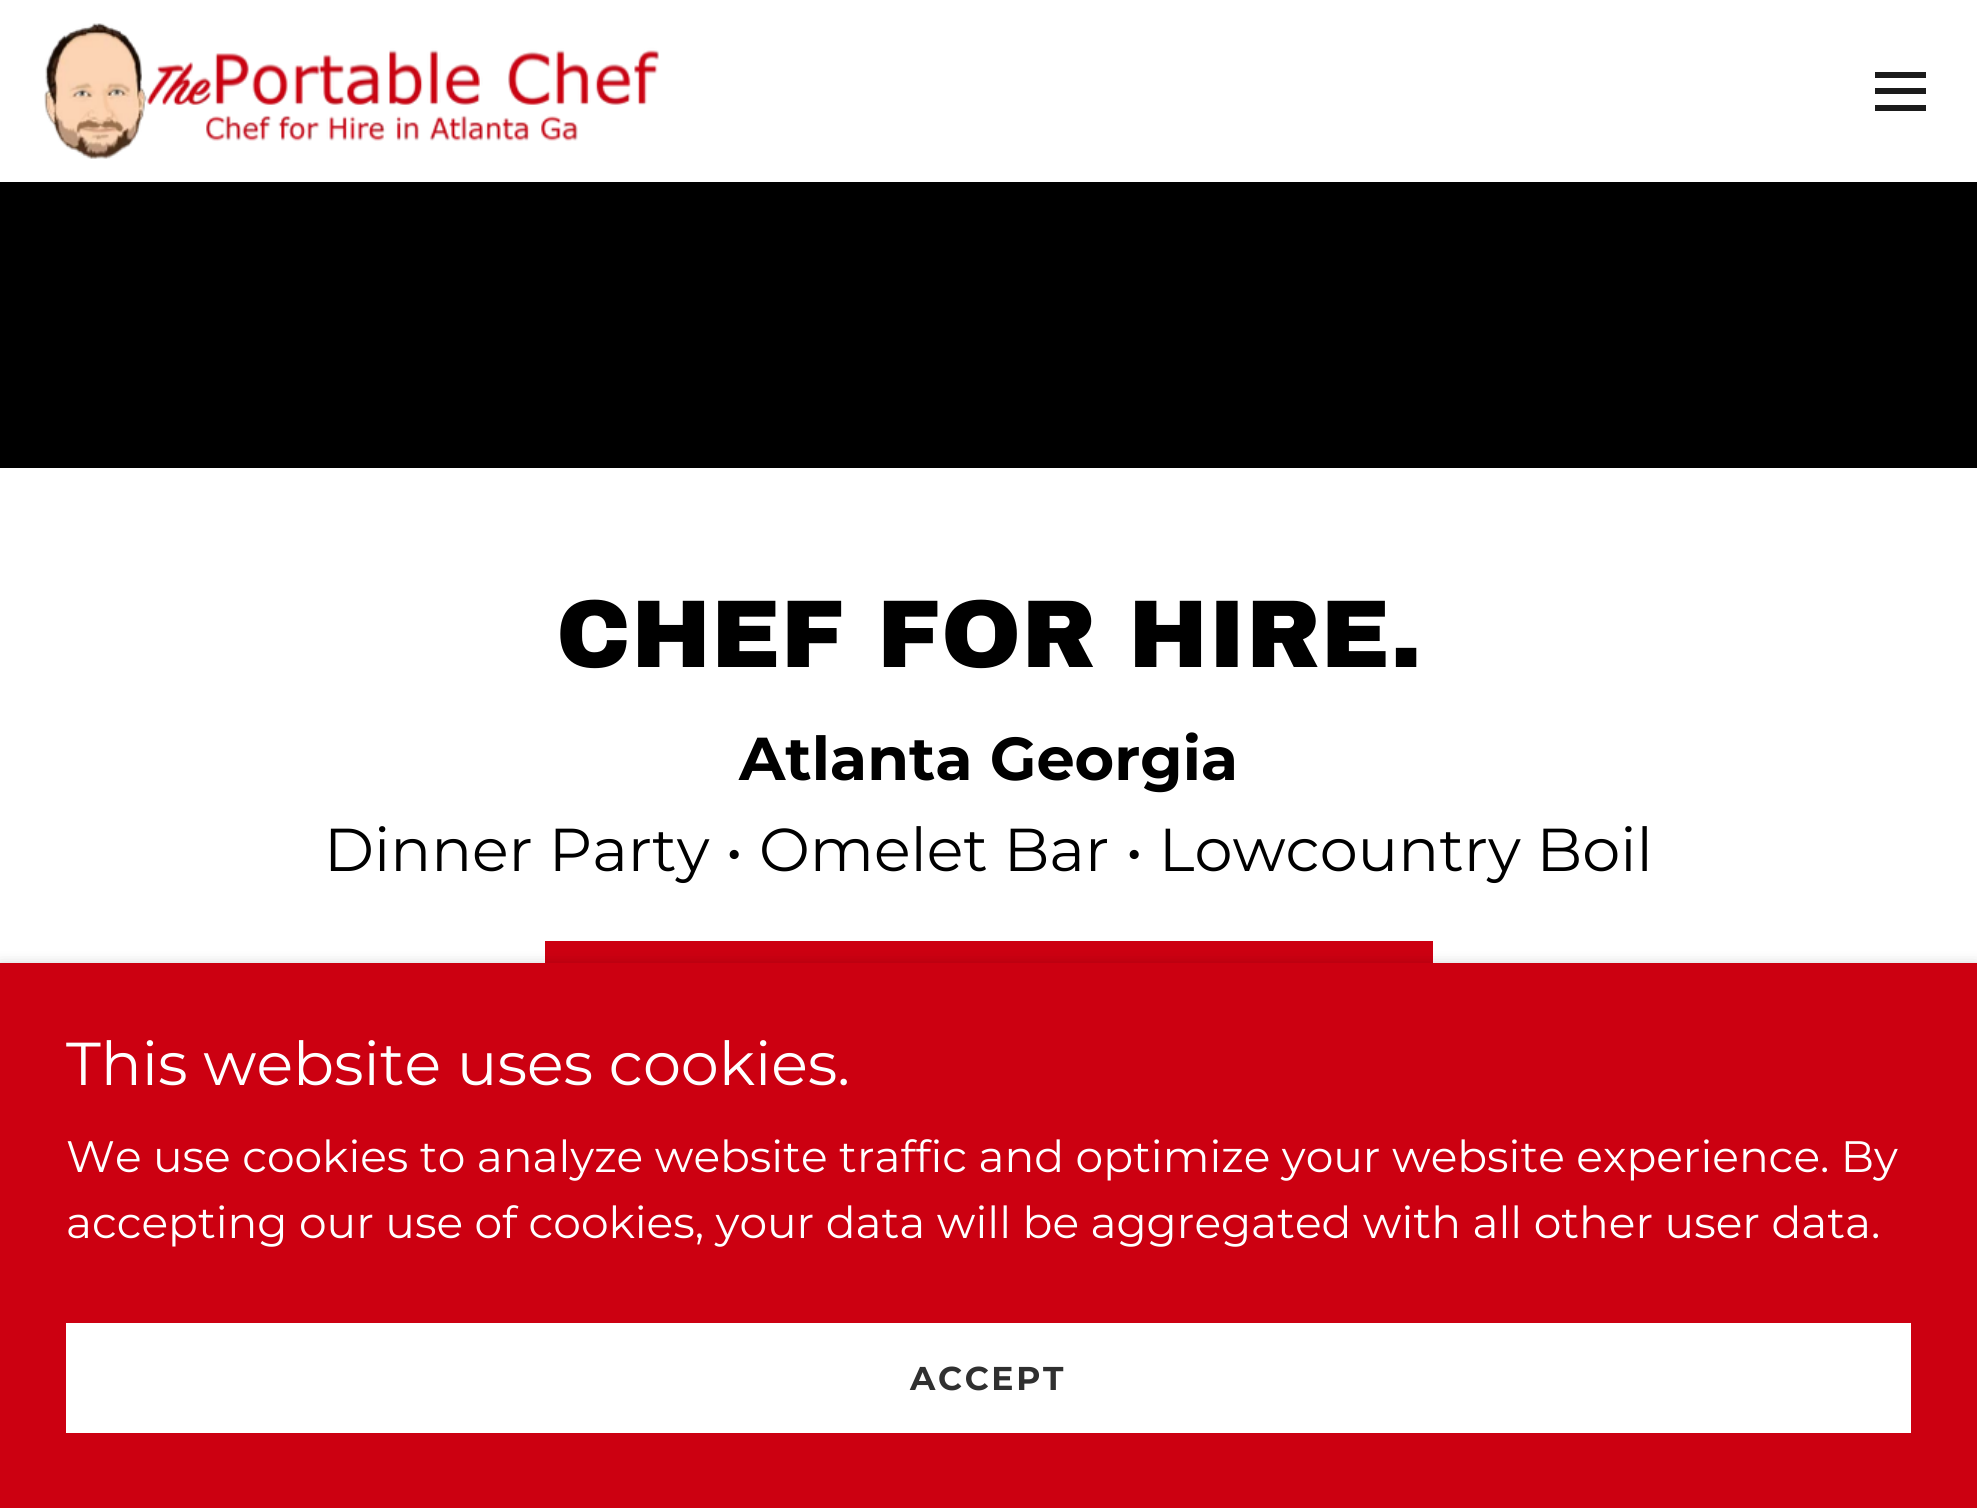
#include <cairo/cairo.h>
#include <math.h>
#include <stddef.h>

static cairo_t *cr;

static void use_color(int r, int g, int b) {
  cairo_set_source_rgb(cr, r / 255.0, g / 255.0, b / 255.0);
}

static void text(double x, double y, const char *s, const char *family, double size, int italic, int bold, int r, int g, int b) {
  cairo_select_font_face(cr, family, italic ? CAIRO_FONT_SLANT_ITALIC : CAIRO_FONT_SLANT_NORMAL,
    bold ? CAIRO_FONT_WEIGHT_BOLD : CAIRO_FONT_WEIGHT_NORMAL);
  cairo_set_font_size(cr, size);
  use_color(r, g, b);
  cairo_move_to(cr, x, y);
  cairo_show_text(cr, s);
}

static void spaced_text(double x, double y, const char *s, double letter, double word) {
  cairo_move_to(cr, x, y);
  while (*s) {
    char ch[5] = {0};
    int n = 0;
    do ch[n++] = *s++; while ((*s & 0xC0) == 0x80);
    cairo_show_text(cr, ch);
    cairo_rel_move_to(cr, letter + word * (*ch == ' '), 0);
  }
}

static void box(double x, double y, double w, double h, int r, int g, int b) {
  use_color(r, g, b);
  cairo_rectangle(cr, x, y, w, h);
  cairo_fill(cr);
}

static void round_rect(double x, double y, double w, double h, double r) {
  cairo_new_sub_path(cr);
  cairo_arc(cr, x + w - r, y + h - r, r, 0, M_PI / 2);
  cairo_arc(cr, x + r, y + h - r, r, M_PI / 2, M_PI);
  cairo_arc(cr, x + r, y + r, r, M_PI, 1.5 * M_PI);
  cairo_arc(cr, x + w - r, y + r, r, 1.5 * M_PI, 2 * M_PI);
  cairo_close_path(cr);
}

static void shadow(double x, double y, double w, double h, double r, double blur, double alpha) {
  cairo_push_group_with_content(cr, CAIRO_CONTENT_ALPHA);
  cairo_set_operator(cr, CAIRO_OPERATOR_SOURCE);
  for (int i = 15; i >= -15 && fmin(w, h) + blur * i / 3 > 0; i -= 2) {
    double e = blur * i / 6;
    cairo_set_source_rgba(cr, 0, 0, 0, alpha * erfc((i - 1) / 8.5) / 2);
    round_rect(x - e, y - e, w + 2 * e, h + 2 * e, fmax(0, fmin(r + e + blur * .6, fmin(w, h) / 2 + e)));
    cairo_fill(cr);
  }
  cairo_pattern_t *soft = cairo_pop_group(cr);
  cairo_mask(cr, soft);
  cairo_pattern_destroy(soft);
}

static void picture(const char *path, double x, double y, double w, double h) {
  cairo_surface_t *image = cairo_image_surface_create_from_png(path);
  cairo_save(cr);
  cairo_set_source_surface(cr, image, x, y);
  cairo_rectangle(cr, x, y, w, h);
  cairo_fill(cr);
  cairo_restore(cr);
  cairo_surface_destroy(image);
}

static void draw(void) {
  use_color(0, 0, 0);
  cairo_paint(cr);
  box(0, 0, 1977, 182, 255, 255, 255);
  picture("img_01.png", 44, 23, 615, 136);
  box(1875, 72, 51, 6, 27, 27, 27);
  box(1875, 88, 51, 6, 27, 27, 27);
  box(1875, 105, 51, 6, 27, 27, 27);
  box(0, 468, 1977, 495, 255, 255, 255);
  box(545, 941, 888, 22, 204, 0, 17);
  use_color(0, 0, 0);
  shadow(0, 968, 1977, 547, 0, 8, 0.3);
  box(0, 963, 1977, 545, 204, 0, 17);
  box(66, 1323, 1845, 110, 255, 255, 255);
  text(556, 667, "CHEF FOR HIRE.", "Archivo Black Black", 96.25, 0, 0, 0, 0, 0);
  text(739, 780, "Atlanta Georgia", "Montserrat", 60.5, 0, 1, 0, 0, 0);
  text(324, 871, "Dinner Party • Omelet Bar • Lowcountry Boil", "Montserrat", 60.5, 0, 0, 0, 0, 0);
  text(66, 1085, "This website uses cookies.", "Montserrat", 60.5, 0, 0, 255, 255, 255);
  text(66, 1172, "We use cookies to analyze website traffic and optimize your website experience. By", "Montserrat", 44, 0, 0, 255, 255, 255);
  text(66, 1238, "accepting our use of cookies, your data will be aggregated with all other user data.", "Montserrat", 44, 0, 0, 255, 255, 255);
  cairo_select_font_face(cr, "Montserrat", CAIRO_FONT_SLANT_NORMAL, CAIRO_FONT_WEIGHT_BOLD);
  cairo_set_font_size(cr, 33);
  use_color(48, 48, 48);
  spaced_text(910, 1390, "ACCEPT", 2.75, 0);
}

int main(void) {
  cairo_surface_t *surface = cairo_image_surface_create(CAIRO_FORMAT_RGB24, 1977, 1508);
  cr = cairo_create(surface);
  cairo_font_options_t *options = cairo_font_options_create();
  cairo_font_options_set_hint_metrics(options, CAIRO_HINT_METRICS_OFF);
  cairo_font_options_set_hint_style(options, CAIRO_HINT_STYLE_NONE);
  cairo_set_font_options(cr, options);
  cairo_set_miter_limit(cr, 4);
  draw();
  cairo_surface_write_to_png(surface, "out.png");
  cairo_font_options_destroy(options);
  cairo_destroy(cr);
  cairo_surface_destroy(surface);
  return 0;
}
